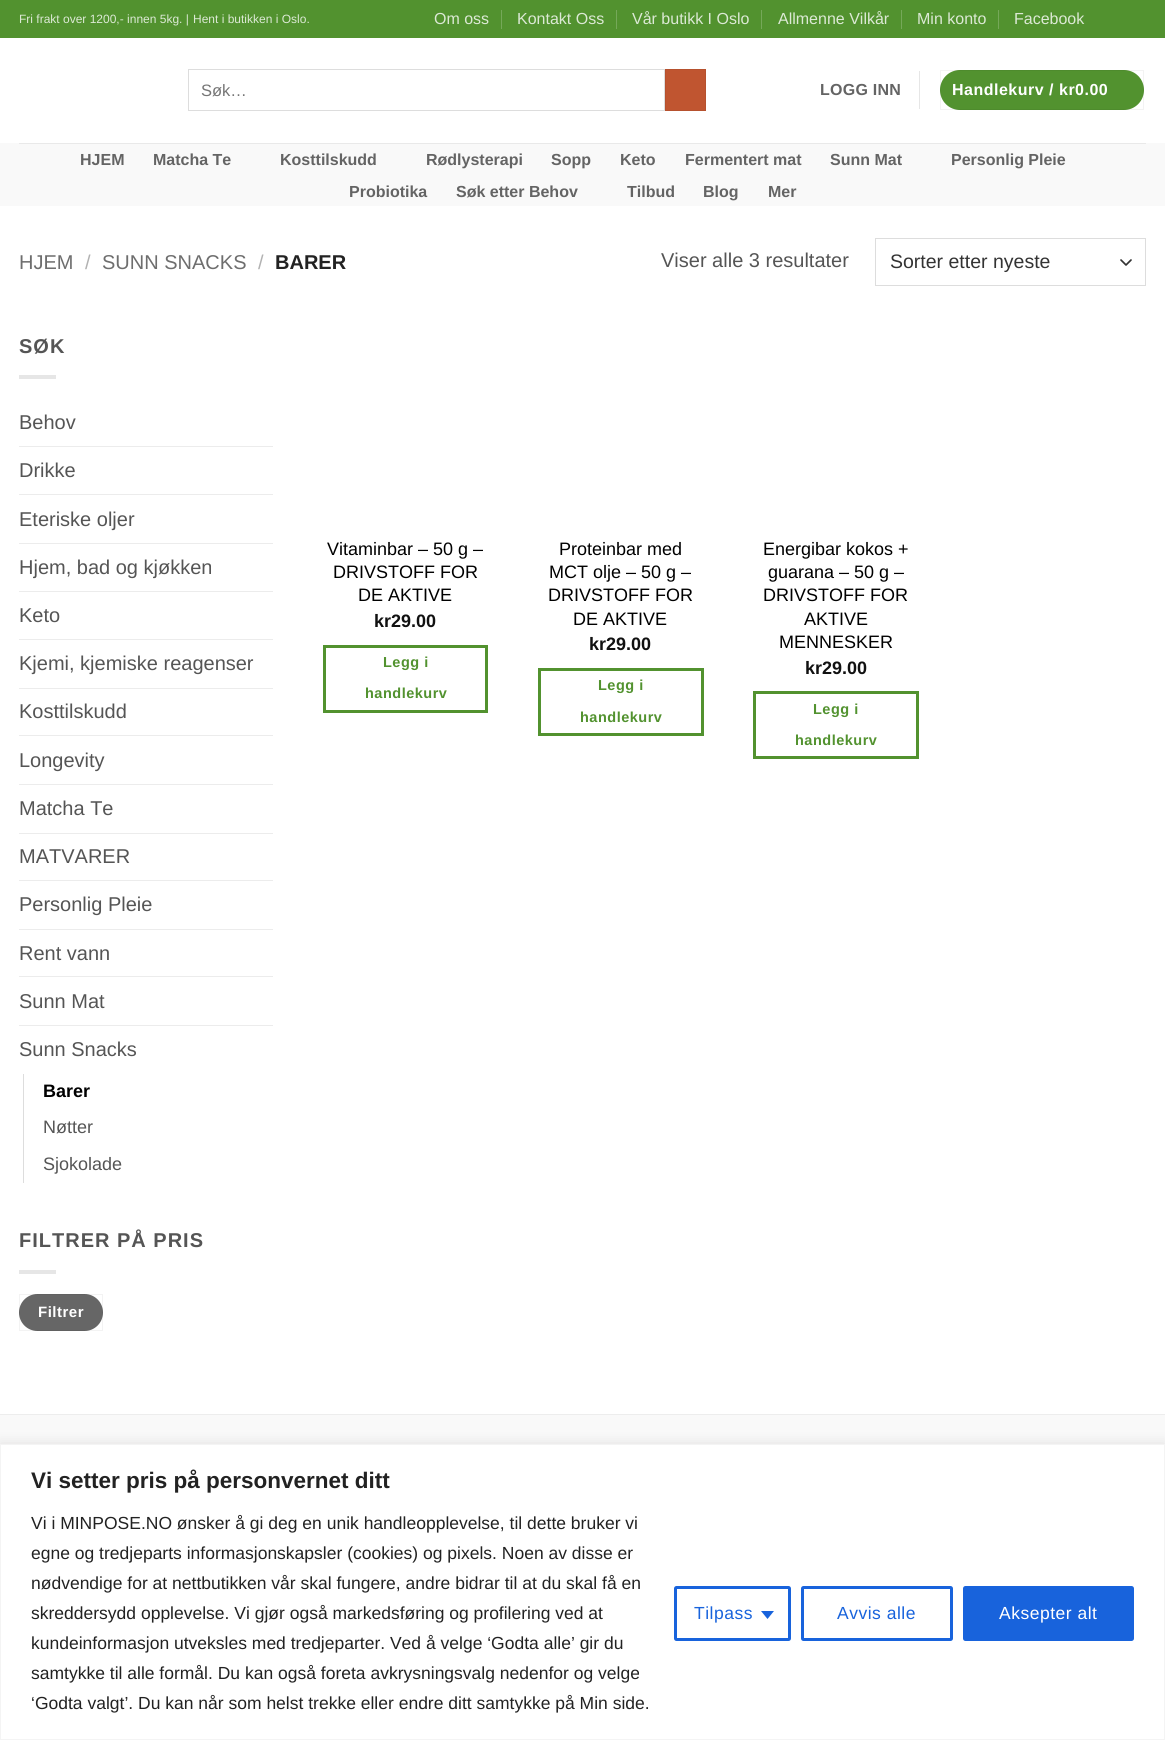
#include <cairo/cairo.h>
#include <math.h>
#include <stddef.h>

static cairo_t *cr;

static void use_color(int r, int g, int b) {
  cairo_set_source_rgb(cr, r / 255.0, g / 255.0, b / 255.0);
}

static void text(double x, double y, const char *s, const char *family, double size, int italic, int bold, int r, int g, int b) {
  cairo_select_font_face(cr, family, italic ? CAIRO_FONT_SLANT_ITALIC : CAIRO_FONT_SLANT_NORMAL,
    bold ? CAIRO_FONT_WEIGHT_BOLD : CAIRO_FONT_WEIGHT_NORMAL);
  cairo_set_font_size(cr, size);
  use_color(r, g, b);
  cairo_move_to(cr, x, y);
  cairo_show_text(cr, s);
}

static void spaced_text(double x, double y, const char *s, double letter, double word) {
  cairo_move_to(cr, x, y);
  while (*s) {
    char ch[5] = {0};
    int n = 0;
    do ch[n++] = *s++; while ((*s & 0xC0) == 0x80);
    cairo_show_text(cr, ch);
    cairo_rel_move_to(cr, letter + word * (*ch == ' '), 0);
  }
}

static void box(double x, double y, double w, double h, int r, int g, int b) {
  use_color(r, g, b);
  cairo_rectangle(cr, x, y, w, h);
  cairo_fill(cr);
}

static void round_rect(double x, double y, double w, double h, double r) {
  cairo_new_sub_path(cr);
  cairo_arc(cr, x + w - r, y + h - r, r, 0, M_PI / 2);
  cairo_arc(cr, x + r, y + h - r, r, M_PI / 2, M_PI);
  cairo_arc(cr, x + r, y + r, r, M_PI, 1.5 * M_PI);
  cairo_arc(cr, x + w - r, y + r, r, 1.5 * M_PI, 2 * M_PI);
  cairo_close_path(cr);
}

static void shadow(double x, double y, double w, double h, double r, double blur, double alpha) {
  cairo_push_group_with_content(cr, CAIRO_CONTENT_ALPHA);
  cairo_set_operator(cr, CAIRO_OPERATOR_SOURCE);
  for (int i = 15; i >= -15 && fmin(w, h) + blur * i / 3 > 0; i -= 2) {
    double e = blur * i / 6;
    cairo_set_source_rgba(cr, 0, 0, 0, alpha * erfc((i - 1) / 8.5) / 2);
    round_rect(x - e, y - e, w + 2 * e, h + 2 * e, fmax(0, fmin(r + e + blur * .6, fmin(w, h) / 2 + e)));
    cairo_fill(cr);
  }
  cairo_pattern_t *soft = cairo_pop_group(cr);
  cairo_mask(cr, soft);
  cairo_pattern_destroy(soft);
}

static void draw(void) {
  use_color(255, 255, 255);
  cairo_paint(cr);
  box(0, 0, 1165, 38, 82, 146, 47);
  box(501, 10, 1, 19, 117, 168, 89);
  box(616, 10, 1, 19, 117, 168, 89);
  box(761, 10, 1, 19, 117, 168, 89);
  box(901, 10, 1, 19, 117, 168, 89);
  box(998, 10, 1, 19, 117, 168, 89);
  cairo_rectangle(cr, 188.5, 69.5, 476, 41);
  use_color(221, 221, 221);
  cairo_set_line_width(cr, 1);
  cairo_stroke(cr);
  use_color(192, 85, 48);
  cairo_rectangle(cr, 665.5, 69.5, 40, 41);
  cairo_fill_preserve(cr);
  use_color(182, 81, 46);
  cairo_stroke(cr);
  box(919, 71, 1, 38, 230, 230, 230);
  use_color(82, 146, 47);
  round_rect(940, 70, 204, 40, 20);
  cairo_fill(cr);
  cairo_rectangle(cr, 940.5, 70.5, 203, 39);
  cairo_set_source_rgba(cr, 0, 0, 0, 0.05);
  cairo_stroke(cr);
  box(0, 143, 1165, 63, 249, 249, 249);
  box(19, 143, 1127, 1, 233, 233, 233);
  cairo_new_path(cr);
  cairo_move_to(cr, 1121, 260);
  cairo_line_to(cr, 1126, 265);
  cairo_line_to(cr, 1131, 260);
  use_color(51, 51, 51);
  cairo_set_line_width(cr, 1.7);
  cairo_set_line_cap(cr, CAIRO_LINE_CAP_ROUND);
  cairo_set_line_join(cr, CAIRO_LINE_JOIN_ROUND);
  cairo_stroke(cr);
  cairo_rectangle(cr, 875.5, 238.5, 270, 47);
  use_color(221, 221, 221);
  cairo_set_line_width(cr, 1);
  cairo_set_line_cap(cr, CAIRO_LINE_CAP_BUTT);
  cairo_set_line_join(cr, CAIRO_LINE_JOIN_MITER);
  cairo_stroke(cr);
  box(19, 375, 37, 4, 230, 230, 230);
  box(19, 446, 254, 1, 236, 236, 236);
  box(19, 494, 254, 1, 236, 236, 236);
  box(19, 543, 254, 1, 236, 236, 236);
  box(19, 591, 254, 1, 236, 236, 236);
  box(19, 639, 254, 1, 236, 236, 236);
  box(19, 688, 254, 1, 236, 236, 236);
  box(19, 735, 254, 1, 236, 236, 236);
  box(19, 784, 254, 1, 236, 236, 236);
  box(19, 833, 254, 1, 236, 236, 236);
  box(19, 880, 254, 1, 236, 236, 236);
  box(19, 929, 254, 1, 236, 236, 236);
  box(19, 976, 254, 1, 236, 236, 236);
  box(19, 1025, 254, 1, 236, 236, 236);
  box(23, 1074, 1, 109, 221, 221, 221);
  box(19, 1270, 37, 4, 230, 230, 230);
  use_color(102, 102, 102);
  round_rect(19, 1294, 84, 37, 18.5);
  cairo_fill(cr);
  cairo_rectangle(cr, 19.5, 1294.5, 83, 36);
  cairo_set_source_rgba(cr, 0, 0, 0, 0.05);
  cairo_stroke(cr);
  cairo_rectangle(cr, 324.5, 646.5, 162, 65);
  use_color(82, 146, 47);
  cairo_set_line_width(cr, 3);
  cairo_stroke(cr);
  cairo_rectangle(cr, 539.5, 669.5, 163, 65);
  cairo_stroke(cr);
  cairo_rectangle(cr, 754.5, 692.5, 163, 65);
  cairo_stroke(cr);
  box(0, 1415, 1165, 29, 249, 249, 249);
  box(0, 1414, 1165, 1, 237, 237, 237);
  use_color(172, 171, 171);
  shadow(0, 1443, 1165, 296, 0, 6, 0.3);
  use_color(255, 255, 255);
  cairo_rectangle(cr, 0.5, 1444.5, 1164, 295);
  cairo_fill_preserve(cr);
  use_color(244, 244, 244);
  cairo_set_line_width(cr, 1);
  cairo_stroke(cr);
  round_rect(675.5, 1587.5, 114, 52, 1);
  use_color(24, 99, 220);
  cairo_set_line_width(cr, 3);
  cairo_stroke(cr);
  cairo_new_path(cr);
  cairo_move_to(cr, 761, 1611);
  cairo_line_to(cr, 774, 1611);
  cairo_line_to(cr, 767.5, 1619);
  cairo_close_path(cr);
  cairo_fill(cr);
  round_rect(802.5, 1587.5, 149, 52, 1);
  cairo_stroke(cr);
  round_rect(964.5, 1587.5, 168, 52, 1);
  cairo_fill_preserve(cr);
  cairo_stroke(cr);
  text(19, 23, "Fri frakt over 1200,- innen 5kg. |", "Liberation Sans", 12, 0, 0, 220, 233, 213);
  text(193, 23, "Hent i butikken i Oslo.", "Liberation Sans", 12, 0, 0, 220, 233, 213);
  text(434, 24, "Om oss", "Liberation Sans", 16, 0, 0, 220, 233, 213);
  text(517, 24, "Kontakt Oss", "Liberation Sans", 16, 0, 0, 220, 233, 213);
  text(632, 24, "Vår butikk I Oslo", "Liberation Sans", 16, 0, 0, 220, 233, 213);
  text(778, 24, "Allmenne Vilkår", "Liberation Sans", 16, 0, 0, 220, 233, 213);
  text(917, 24, "Min konto", "Liberation Sans", 16, 0, 0, 220, 233, 213);
  text(1014, 24, "Facebook", "Liberation Sans", 16, 0, 0, 220, 233, 213);
  text(201, 96, "Søk…", "Liberation Sans", 16.5, 0, 0, 117, 117, 117);
  cairo_select_font_face(cr, "Liberation Sans", CAIRO_FONT_SLANT_NORMAL, CAIRO_FONT_WEIGHT_BOLD);
  cairo_set_font_size(cr, 16);
  use_color(100, 100, 100);
  spaced_text(820, 95, "LOGG INN", 0.25, 0);
  use_color(255, 255, 255);
  spaced_text(952, 95, "Handlekurv / kr0.00", 0.5, 0);
  text(80, 165, "HJEM", "Liberation Sans", 16, 0, 1, 100, 100, 100);
  text(153, 165, "Matcha Te", "Liberation Sans", 16, 0, 1, 100, 100, 100);
  text(280, 165, "Kosttilskudd", "Liberation Sans", 16, 0, 1, 100, 100, 100);
  text(426, 165, "Rødlysterapi", "Liberation Sans", 16, 0, 1, 100, 100, 100);
  text(551, 165, "Sopp", "Liberation Sans", 16, 0, 1, 100, 100, 100);
  text(620, 165, "Keto", "Liberation Sans", 16, 0, 1, 100, 100, 100);
  text(685, 165, "Fermentert mat", "Liberation Sans", 16, 0, 1, 100, 100, 100);
  text(830, 165, "Sunn Mat", "Liberation Sans", 16, 0, 1, 100, 100, 100);
  text(951, 165, "Personlig Pleie", "Liberation Sans", 16, 0, 1, 100, 100, 100);
  text(349, 197, "Probiotika", "Liberation Sans", 16, 0, 1, 100, 100, 100);
  text(456, 197, "Søk etter Behov", "Liberation Sans", 16, 0, 1, 100, 100, 100);
  text(627, 197, "Tilbud", "Liberation Sans", 16, 0, 1, 100, 100, 100);
  text(703, 197, "Blog", "Liberation Sans", 16, 0, 1, 100, 100, 100);
  text(768, 197, "Mer", "Liberation Sans", 16, 0, 1, 100, 100, 100);
  text(19, 269, "HJEM", "Liberation Sans", 20, 0, 0, 110, 110, 110);
  text(85, 269, "/", "Liberation Sans", 20, 0, 0, 178, 178, 178);
  text(102, 269, "SUNN SNACKS", "Liberation Sans", 20, 0, 0, 110, 110, 110);
  text(258, 269, "/", "Liberation Sans", 20, 0, 0, 178, 178, 178);
  text(275, 269, "BARER", "Liberation Sans", 20, 0, 1, 34, 34, 34);
  text(661, 267, "Viser alle 3 resultater", "Liberation Sans", 20, 0, 0, 85, 85, 85);
  text(890, 268, "Sorter etter nyeste", "Liberation Sans", 19.5, 0, 0, 51, 51, 51);
  cairo_select_font_face(cr, "Liberation Sans", CAIRO_FONT_SLANT_NORMAL, CAIRO_FONT_WEIGHT_BOLD);
  cairo_set_font_size(cr, 20);
  use_color(85, 85, 85);
  spaced_text(19, 353, "SØK", 1, 0);
  text(19, 429, "Behov", "Liberation Sans", 20, 0, 0, 85, 85, 85);
  text(19, 477, "Drikke", "Liberation Sans", 20, 0, 0, 85, 85, 85);
  text(19, 526, "Eteriske oljer", "Liberation Sans", 20, 0, 0, 85, 85, 85);
  text(19, 574, "Hjem, bad og kjøkken", "Liberation Sans", 20, 0, 0, 85, 85, 85);
  text(19, 622, "Keto", "Liberation Sans", 20, 0, 0, 85, 85, 85);
  text(19, 670, "Kjemi, kjemiske reagenser", "Liberation Sans", 20, 0, 0, 85, 85, 85);
  text(19, 718, "Kosttilskudd", "Liberation Sans", 20, 0, 0, 85, 85, 85);
  text(19, 767, "Longevity", "Liberation Sans", 20, 0, 0, 85, 85, 85);
  text(19, 815, "Matcha Te", "Liberation Sans", 20, 0, 0, 85, 85, 85);
  text(19, 863, "MATVARER", "Liberation Sans", 20, 0, 0, 85, 85, 85);
  text(19, 911, "Personlig Pleie", "Liberation Sans", 20, 0, 0, 85, 85, 85);
  text(19, 960, "Rent vann", "Liberation Sans", 20, 0, 0, 85, 85, 85);
  text(19, 1008, "Sunn Mat", "Liberation Sans", 20, 0, 0, 85, 85, 85);
  text(19, 1056, "Sunn Snacks", "Liberation Sans", 20, 0, 0, 85, 85, 85);
  text(43, 1097, "Barer", "Liberation Sans", 18, 0, 1, 0, 0, 0);
  text(43, 1133, "Nøtter", "Liberation Sans", 18, 0, 0, 85, 85, 85);
  text(43, 1170, "Sjokolade", "Liberation Sans", 18, 0, 0, 85, 85, 85);
  cairo_select_font_face(cr, "Liberation Sans", CAIRO_FONT_SLANT_NORMAL, CAIRO_FONT_WEIGHT_BOLD);
  cairo_set_font_size(cr, 20);
  spaced_text(19, 1247, "FILTRER PÅ PRIS", 1, 0);
  cairo_set_font_size(cr, 15);
  use_color(255, 255, 255);
  spaced_text(38, 1317, "Filtrer", 0.5, 0);
  text(327, 555, "Vitaminbar – 50 g –", "Liberation Sans", 18, 0, 0, 0, 0, 0);
  text(333, 578, "DRIVSTOFF FOR", "Liberation Sans", 18, 0, 0, 0, 0, 0);
  text(358, 601, "DE AKTIVE", "Liberation Sans", 18, 0, 0, 0, 0, 0);
  text(374, 627, "kr29.00", "Liberation Sans", 18, 0, 1, 17, 17, 17);
  cairo_set_font_size(cr, 14.5);
  use_color(82, 146, 47);
  spaced_text(383, 667, "Legg i", 0.5, 0);
  spaced_text(365, 698, "handlekurv", 0.5, 0);
  text(559, 555, "Proteinbar med", "Liberation Sans", 18, 0, 0, 0, 0, 0);
  text(549, 578, "MCT olje – 50 g –", "Liberation Sans", 18, 0, 0, 0, 0, 0);
  text(548, 601, "DRIVSTOFF FOR", "Liberation Sans", 18, 0, 0, 0, 0, 0);
  text(573, 625, "DE AKTIVE", "Liberation Sans", 18, 0, 0, 0, 0, 0);
  text(589, 650, "kr29.00", "Liberation Sans", 18, 0, 1, 17, 17, 17);
  cairo_set_font_size(cr, 14.5);
  use_color(82, 146, 47);
  spaced_text(598, 690, "Legg i", 0.5, 0);
  spaced_text(580, 722, "handlekurv", 0.5, 0);
  text(763, 555, "Energibar kokos +", "Liberation Sans", 18, 0, 0, 0, 0, 0);
  text(768, 578, "guarana – 50 g –", "Liberation Sans", 18, 0, 0, 0, 0, 0);
  text(763, 601, "DRIVSTOFF FOR", "Liberation Sans", 18, 0, 0, 0, 0, 0);
  text(804, 625, "AKTIVE", "Liberation Sans", 18, 0, 0, 0, 0, 0);
  text(779, 648, "MENNESKER", "Liberation Sans", 18, 0, 0, 0, 0, 0);
  text(805, 674, "kr29.00", "Liberation Sans", 18, 0, 1, 17, 17, 17);
  cairo_set_font_size(cr, 14.5);
  use_color(82, 146, 47);
  spaced_text(813, 714, "Legg i", 0.5, 0);
  spaced_text(795, 745, "handlekurv", 0.5, 0);
  text(31, 1488, "Vi setter pris på personvernet ditt", "Liberation Sans", 22.5, 0, 1, 34, 34, 34);
  text(31, 1529, "Vi i MINPOSE.NO ønsker å gi deg en unik handleopplevelse, til dette bruker vi", "Liberation Sans", 17.5, 0, 0, 34, 34, 34);
  text(31, 1559, "egne og tredjeparts informasjonskapsler (cookies) og pixels. Noen av disse er", "Liberation Sans", 17.5, 0, 0, 34, 34, 34);
  text(31, 1589, "nødvendige for at nettbutikken vår skal fungere, andre bidrar til at du skal få en", "Liberation Sans", 17.5, 0, 0, 34, 34, 34);
  text(31, 1619, "skreddersydd opplevelse. Vi gjør også markedsføring og profilering ved at", "Liberation Sans", 17.5, 0, 0, 34, 34, 34);
  text(31, 1649, "kundeinformasjon utveksles med tredjeparter. Ved å velge ‘Godta alle’ gir du", "Liberation Sans", 17.5, 0, 0, 34, 34, 34);
  text(31, 1679, "samtykke til alle formål. Du kan også foreta avkrysningsvalg nedenfor og velge", "Liberation Sans", 17.5, 0, 0, 34, 34, 34);
  text(31, 1709, "‘Godta valgt’. Du kan når som helst trekke eller endre ditt samtykke på Min side.", "Liberation Sans", 17.5, 0, 0, 34, 34, 34);
  use_color(24, 99, 220);
  spaced_text(694, 1619, "Tilpass", 0.5, 0);
  spaced_text(837, 1619, "Avvis alle", 0.5, 0);
  use_color(255, 255, 255);
  spaced_text(999, 1619, "Aksepter alt", 0.5, 0);
}

int main(void) {
  cairo_surface_t *surface = cairo_image_surface_create(CAIRO_FORMAT_RGB24, 1165, 1740);
  cr = cairo_create(surface);
  cairo_font_options_t *options = cairo_font_options_create();
  cairo_font_options_set_hint_metrics(options, CAIRO_HINT_METRICS_OFF);
  cairo_font_options_set_hint_style(options, CAIRO_HINT_STYLE_NONE);
  cairo_set_font_options(cr, options);
  cairo_set_miter_limit(cr, 4);
  draw();
  cairo_surface_write_to_png(surface, "out.png");
  cairo_font_options_destroy(options);
  cairo_destroy(cr);
  cairo_surface_destroy(surface);
  return 0;
}
